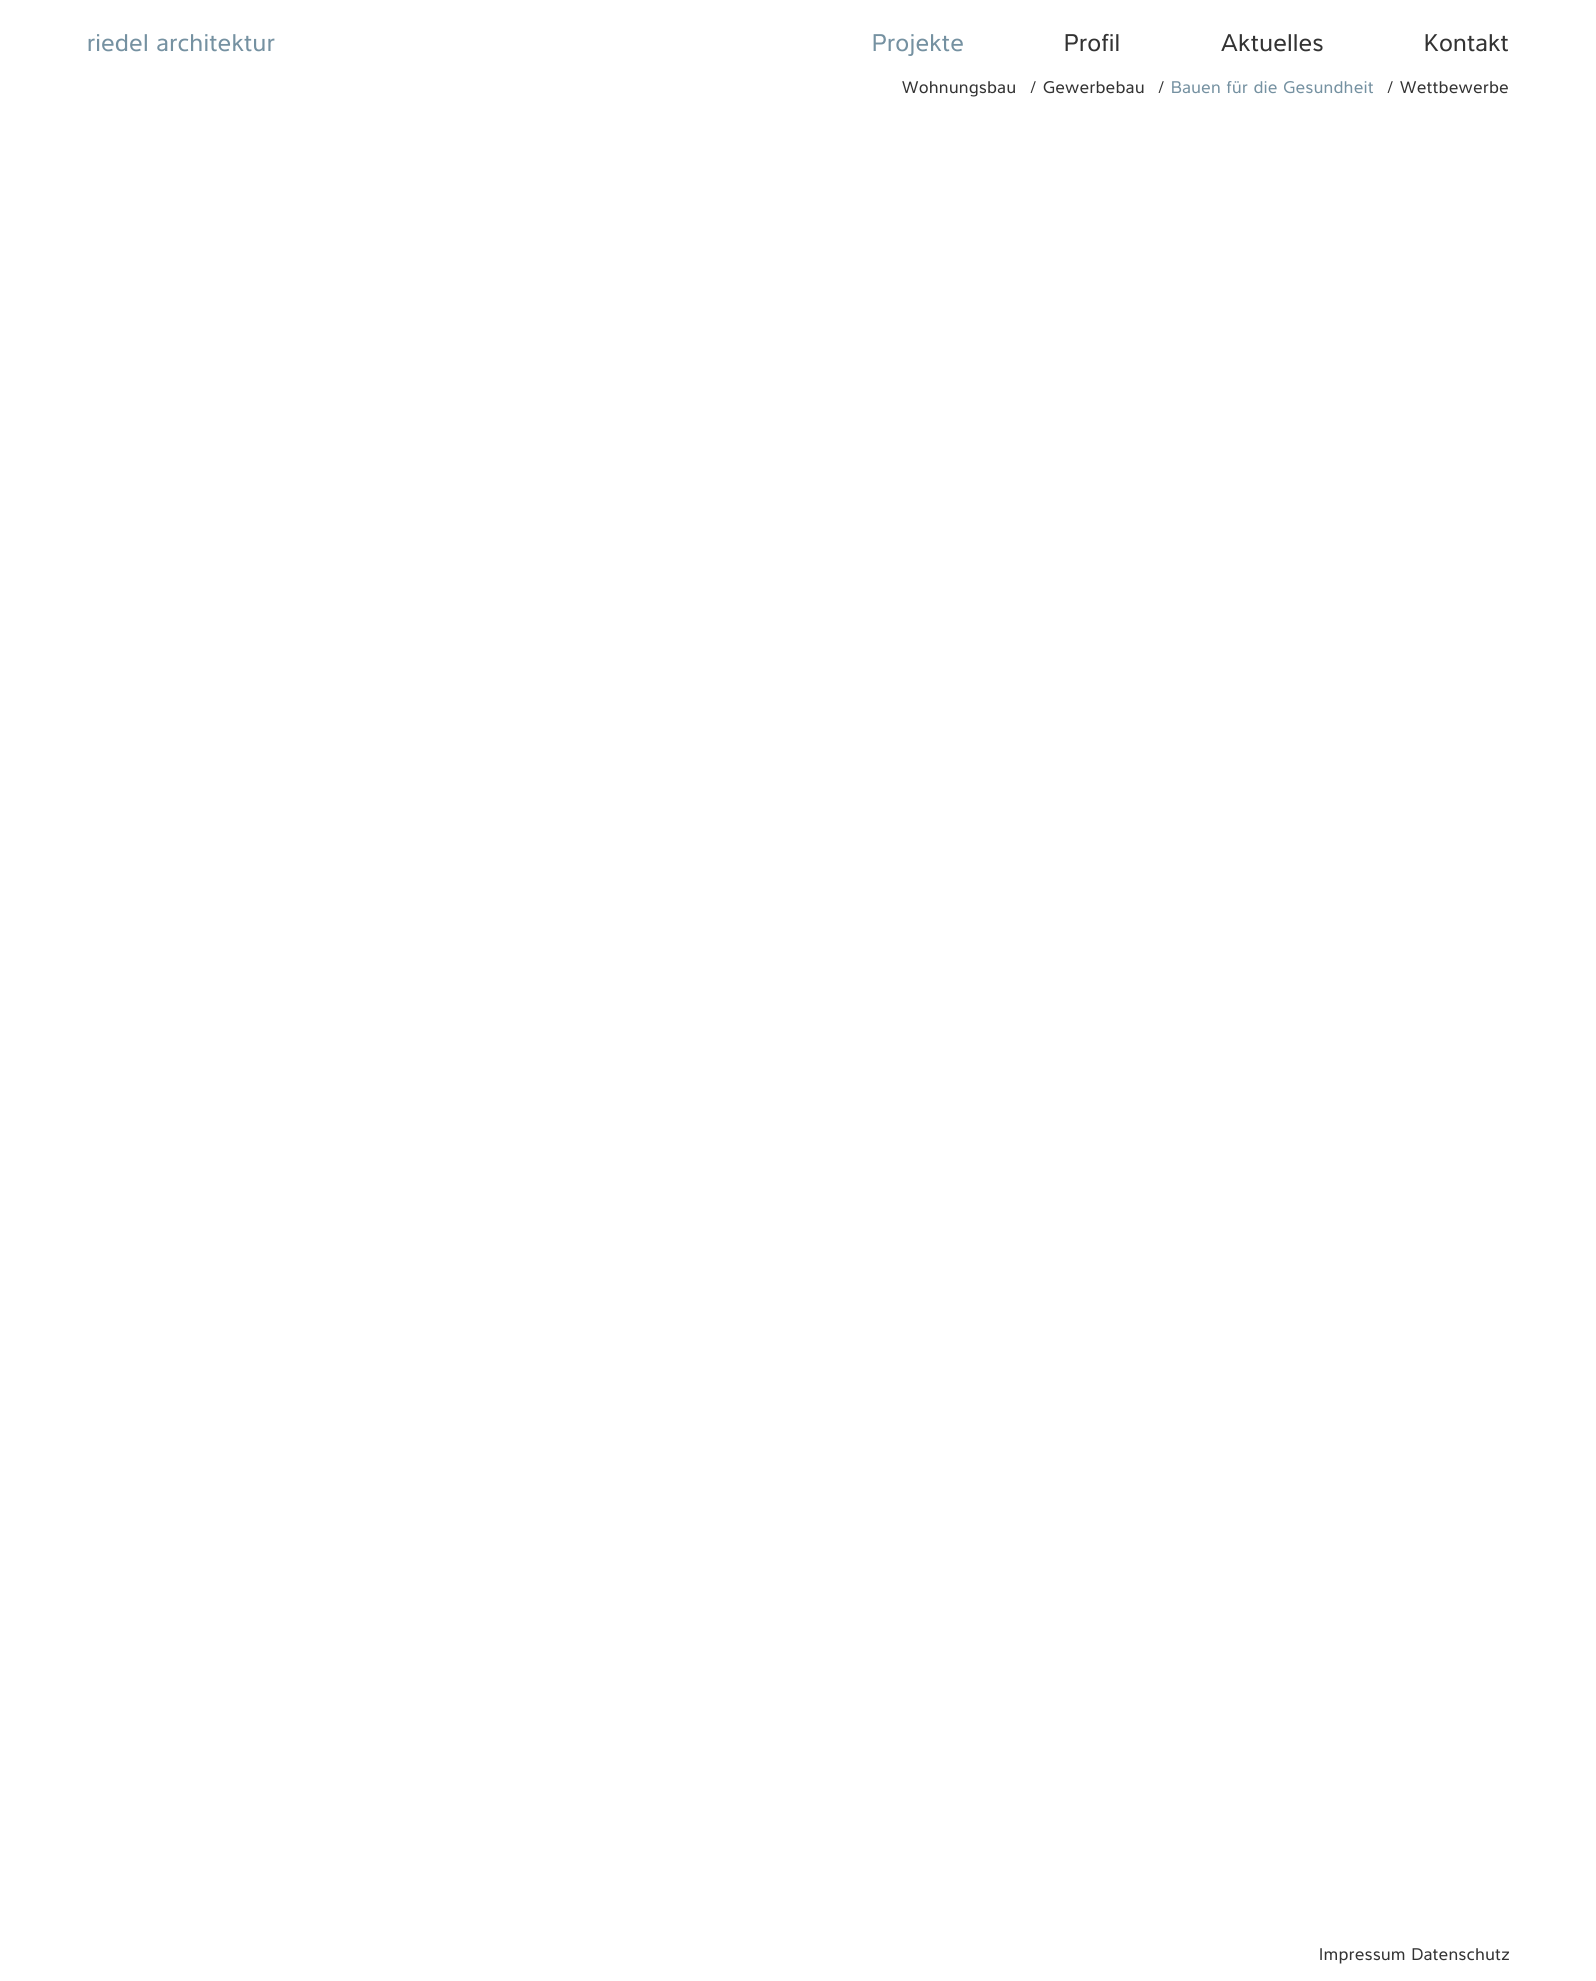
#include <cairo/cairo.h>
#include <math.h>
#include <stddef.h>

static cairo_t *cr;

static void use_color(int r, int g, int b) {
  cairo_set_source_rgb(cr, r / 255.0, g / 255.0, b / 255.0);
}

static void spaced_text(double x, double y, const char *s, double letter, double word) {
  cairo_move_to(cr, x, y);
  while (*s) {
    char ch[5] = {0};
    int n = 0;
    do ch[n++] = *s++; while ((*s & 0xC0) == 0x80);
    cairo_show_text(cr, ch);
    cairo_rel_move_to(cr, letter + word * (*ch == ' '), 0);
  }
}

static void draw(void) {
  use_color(255, 255, 255);
  cairo_paint(cr);
  cairo_select_font_face(cr, "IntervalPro", CAIRO_FONT_SLANT_NORMAL, CAIRO_FONT_WEIGHT_NORMAL);
  cairo_set_font_size(cr, 25);
  use_color(117, 145, 161);
  spaced_text(87, 51, "riedel architektur", 0.6, 0);
  use_color(51, 51, 51);
  spaced_text(1064, 51, "Profil", 0.6, 0);
  use_color(117, 145, 161);
  spaced_text(872, 51, "Projekte", 0.6, 0);
  cairo_set_font_size(cr, 17.5);
  use_color(51, 51, 51);
  spaced_text(902, 93, "Wohnungsbau", 0.6, 0);
  spaced_text(1030, 93, "/", 0.6, 0);
  spaced_text(1043, 93, "Gewerbebau", 0.6, 0);
  spaced_text(1158, 93, "/", 0.6, 0);
  use_color(117, 145, 161);
  spaced_text(1171, 93, "Bauen für die Gesundheit", 0.6, 0);
  use_color(51, 51, 51);
  spaced_text(1387, 93, "/", 0.6, 0);
  spaced_text(1400, 93, "Wettbewerbe", 0.6, 0);
  cairo_set_font_size(cr, 25);
  spaced_text(1221, 51, "Aktuelles", 0.6, 0);
  spaced_text(1424, 51, "Kontakt", 0.6, 0);
  cairo_set_font_size(cr, 17.5);
  spaced_text(1319, 1960, "Impressum Datenschutz", 0.6, 0);
}

int main(void) {
  cairo_surface_t *surface = cairo_image_surface_create(CAIRO_FORMAT_RGB24, 1596, 1981);
  cr = cairo_create(surface);
  cairo_font_options_t *options = cairo_font_options_create();
  cairo_font_options_set_hint_metrics(options, CAIRO_HINT_METRICS_OFF);
  cairo_font_options_set_hint_style(options, CAIRO_HINT_STYLE_NONE);
  cairo_set_font_options(cr, options);
  cairo_set_miter_limit(cr, 4);
  draw();
  cairo_surface_write_to_png(surface, "out.png");
  cairo_font_options_destroy(options);
  cairo_destroy(cr);
  cairo_surface_destroy(surface);
  return 0;
}
